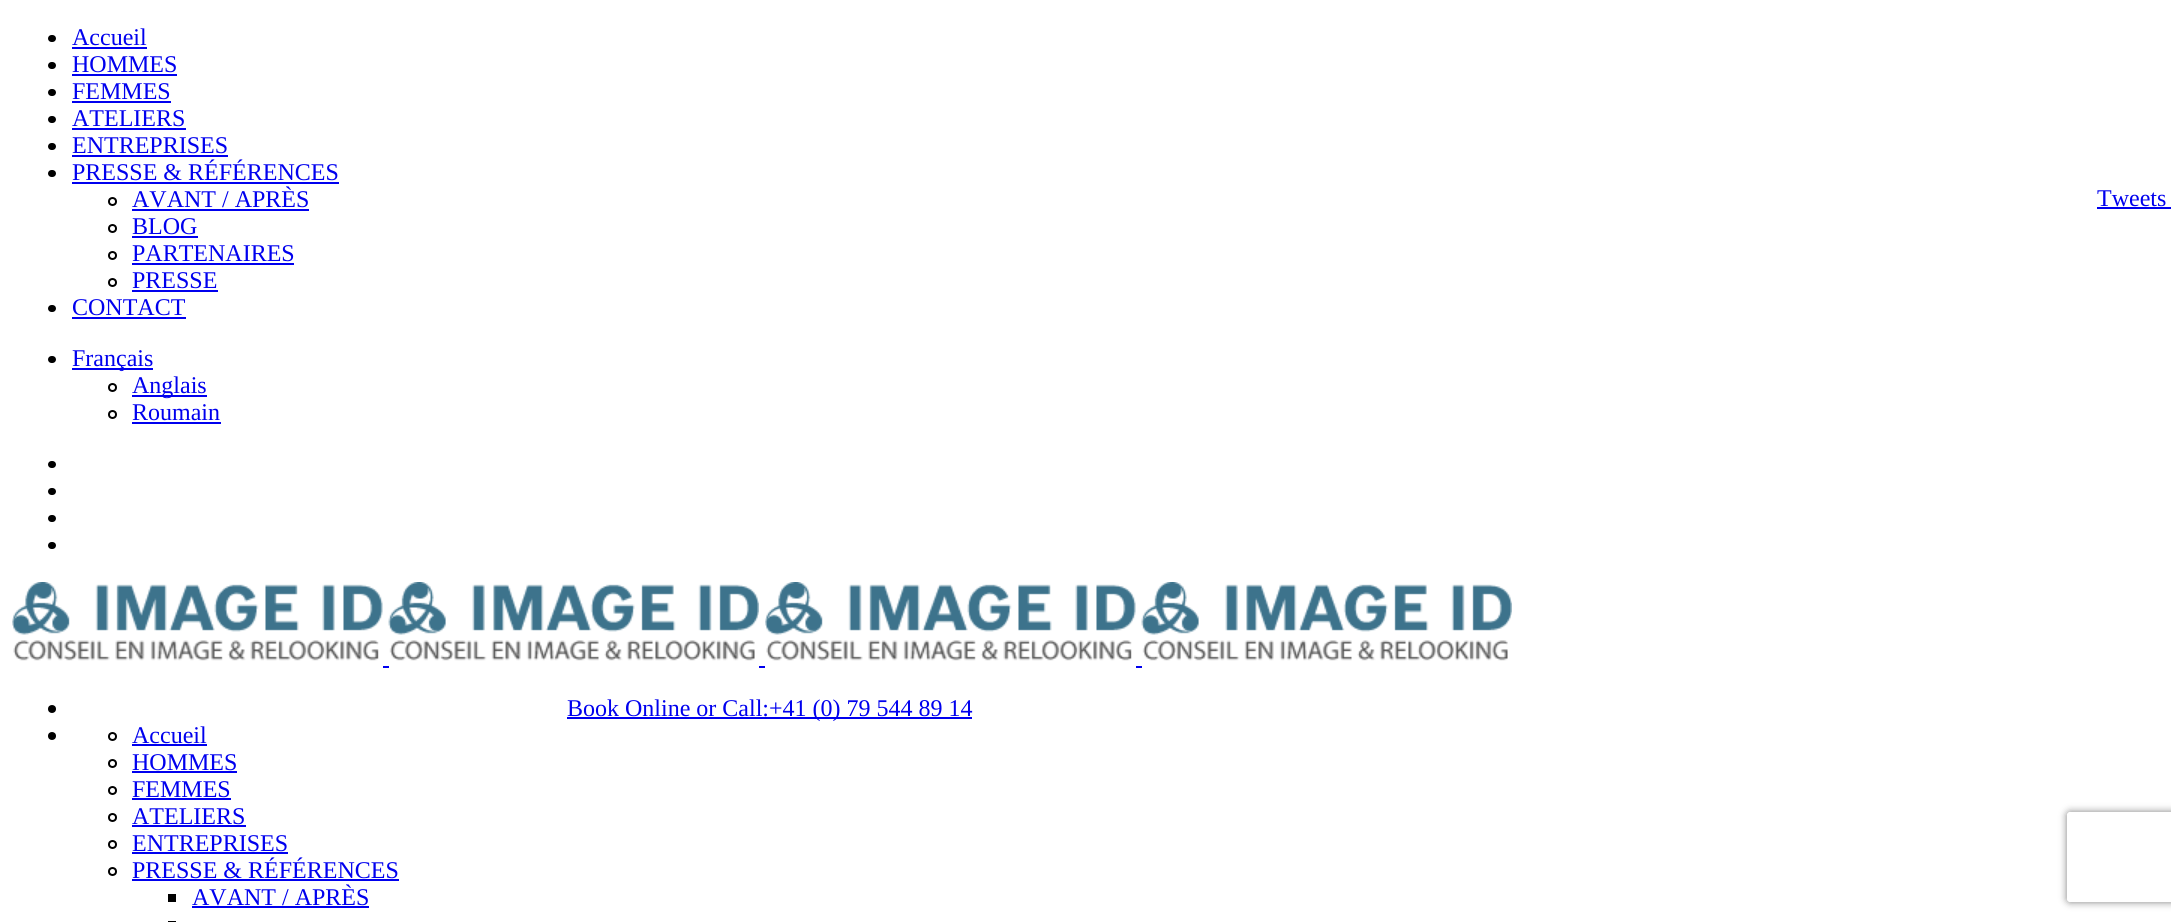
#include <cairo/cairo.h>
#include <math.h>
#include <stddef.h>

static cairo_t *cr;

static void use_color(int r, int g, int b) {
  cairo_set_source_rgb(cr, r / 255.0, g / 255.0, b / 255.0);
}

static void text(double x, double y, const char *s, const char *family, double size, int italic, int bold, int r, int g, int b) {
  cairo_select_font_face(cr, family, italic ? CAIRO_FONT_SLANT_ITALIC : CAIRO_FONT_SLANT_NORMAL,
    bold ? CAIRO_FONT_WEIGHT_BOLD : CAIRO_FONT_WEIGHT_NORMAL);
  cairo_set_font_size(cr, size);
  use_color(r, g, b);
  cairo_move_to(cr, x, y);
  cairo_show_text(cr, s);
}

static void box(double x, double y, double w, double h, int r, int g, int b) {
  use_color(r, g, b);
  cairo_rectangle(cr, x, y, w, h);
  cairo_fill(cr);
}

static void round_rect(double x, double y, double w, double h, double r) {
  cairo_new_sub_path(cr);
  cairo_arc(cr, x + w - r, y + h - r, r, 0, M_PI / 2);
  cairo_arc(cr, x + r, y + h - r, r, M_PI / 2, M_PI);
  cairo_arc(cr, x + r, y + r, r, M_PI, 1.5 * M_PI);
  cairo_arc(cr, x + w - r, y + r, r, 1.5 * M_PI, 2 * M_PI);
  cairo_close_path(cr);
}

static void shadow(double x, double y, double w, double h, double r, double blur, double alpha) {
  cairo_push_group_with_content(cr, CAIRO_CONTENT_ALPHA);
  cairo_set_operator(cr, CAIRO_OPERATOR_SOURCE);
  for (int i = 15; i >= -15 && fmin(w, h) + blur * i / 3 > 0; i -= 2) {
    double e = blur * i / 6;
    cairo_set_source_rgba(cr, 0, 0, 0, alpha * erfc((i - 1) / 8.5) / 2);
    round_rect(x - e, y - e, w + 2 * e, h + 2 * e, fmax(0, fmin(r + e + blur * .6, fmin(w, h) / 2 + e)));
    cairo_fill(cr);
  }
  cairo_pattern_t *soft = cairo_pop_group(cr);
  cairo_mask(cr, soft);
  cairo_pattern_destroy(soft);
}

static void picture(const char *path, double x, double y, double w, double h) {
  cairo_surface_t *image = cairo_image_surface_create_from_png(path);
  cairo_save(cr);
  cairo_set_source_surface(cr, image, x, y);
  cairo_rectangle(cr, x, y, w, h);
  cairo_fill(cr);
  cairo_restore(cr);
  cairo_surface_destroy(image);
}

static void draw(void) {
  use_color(255, 255, 255);
  cairo_paint(cr);
  use_color(0, 0, 0);
  round_rect(48, 35, 8, 7, 3.5);
  cairo_fill(cr);
  box(72, 47, 75, 2, 0, 0, 238);
  use_color(0, 0, 0);
  round_rect(48, 62, 8, 7, 3.5);
  cairo_fill(cr);
  box(72, 74, 105, 2, 0, 0, 238);
  use_color(0, 0, 0);
  round_rect(48, 89, 8, 7, 3.5);
  cairo_fill(cr);
  box(72, 101, 99, 2, 0, 0, 238);
  use_color(0, 0, 0);
  round_rect(48, 116, 8, 7, 3.5);
  cairo_fill(cr);
  box(72, 128, 114, 2, 0, 0, 238);
  use_color(0, 0, 0);
  round_rect(48, 143, 8, 7, 3.5);
  cairo_fill(cr);
  box(72, 155, 156, 2, 0, 0, 238);
  use_color(0, 0, 0);
  round_rect(48, 170, 8, 7, 3.5);
  cairo_fill(cr);
  box(72, 182, 267, 2, 0, 0, 238);
  cairo_arc(cr, 112.5, 201.5, 3.5, 0, 2 * M_PI);
  use_color(0, 0, 0);
  cairo_stroke(cr);
  box(132, 209, 177, 2, 0, 0, 238);
  cairo_arc(cr, 112.5, 228.5, 3.5, 0, 2 * M_PI);
  use_color(0, 0, 0);
  cairo_stroke(cr);
  box(132, 236, 66, 2, 0, 0, 238);
  cairo_arc(cr, 112.5, 255.5, 3.5, 0, 2 * M_PI);
  use_color(0, 0, 0);
  cairo_stroke(cr);
  box(132, 263, 162, 2, 0, 0, 238);
  cairo_arc(cr, 112.5, 282.5, 3.5, 0, 2 * M_PI);
  use_color(0, 0, 0);
  cairo_stroke(cr);
  box(132, 290, 86, 2, 0, 0, 238);
  use_color(0, 0, 0);
  round_rect(48, 305, 8, 7, 3.5);
  cairo_fill(cr);
  box(72, 317, 114, 2, 0, 0, 238);
  use_color(0, 0, 0);
  round_rect(48, 356, 8, 7, 3.5);
  cairo_fill(cr);
  box(72, 368, 81, 2, 0, 0, 238);
  cairo_arc(cr, 112.5, 387.5, 3.5, 0, 2 * M_PI);
  use_color(0, 0, 0);
  cairo_stroke(cr);
  box(132, 395, 75, 2, 0, 0, 238);
  cairo_arc(cr, 112.5, 414.5, 3.5, 0, 2 * M_PI);
  use_color(0, 0, 0);
  cairo_stroke(cr);
  box(132, 422, 89, 2, 0, 0, 238);
  use_color(0, 0, 0);
  round_rect(48, 461, 8, 7, 3.5);
  cairo_fill(cr);
  round_rect(48, 488, 8, 7, 3.5);
  cairo_fill(cr);
  round_rect(48, 515, 8, 7, 3.5);
  cairo_fill(cr);
  round_rect(48, 542, 8, 7, 3.5);
  cairo_fill(cr);
  picture("img_01.png", 12, 582, 371, 79);
  picture("img_02.png", 388, 582, 371, 79);
  picture("img_01.png", 765, 582, 371, 79);
  picture("img_03.png", 1141, 582, 371, 79);
  box(383, 666, 6, 2, 0, 0, 238);
  box(759, 666, 6, 2, 0, 0, 238);
  box(1136, 666, 6, 2, 0, 0, 238);
  use_color(0, 0, 0);
  cairo_arc(cr, 52, 709, 4, 0, 2 * M_PI);
  cairo_fill(cr);
  box(567, 717, 405, 2, 0, 0, 238);
  use_color(0, 0, 0);
  cairo_arc(cr, 52, 736, 4, 0, 2 * M_PI);
  cairo_fill(cr);
  cairo_arc(cr, 112.5, 736.5, 3.5, 0, 2 * M_PI);
  cairo_stroke(cr);
  box(132, 744, 75, 2, 0, 0, 238);
  cairo_arc(cr, 112.5, 763.5, 3.5, 0, 2 * M_PI);
  use_color(0, 0, 0);
  cairo_stroke(cr);
  box(132, 771, 105, 2, 0, 0, 238);
  cairo_arc(cr, 112.5, 790.5, 3.5, 0, 2 * M_PI);
  use_color(0, 0, 0);
  cairo_stroke(cr);
  box(132, 798, 99, 2, 0, 0, 238);
  cairo_arc(cr, 112.5, 817.5, 3.5, 0, 2 * M_PI);
  use_color(0, 0, 0);
  cairo_stroke(cr);
  box(132, 825, 114, 2, 0, 0, 238);
  cairo_arc(cr, 112.5, 844.5, 3.5, 0, 2 * M_PI);
  use_color(0, 0, 0);
  cairo_stroke(cr);
  box(132, 852, 156, 2, 0, 0, 238);
  cairo_arc(cr, 112.5, 871.5, 3.5, 0, 2 * M_PI);
  use_color(0, 0, 0);
  cairo_stroke(cr);
  box(132, 879, 267, 2, 0, 0, 238);
  box(168, 894, 8, 8, 0, 0, 0);
  box(192, 906, 177, 2, 0, 0, 238);
  box(168, 921, 8, 1, 0, 0, 0);
  box(2097, 207, 74, 2, 0, 0, 238);
  cairo_save(cr);
  cairo_set_fill_rule(cr, CAIRO_FILL_RULE_EVEN_ODD);
  cairo_new_path(cr);
  cairo_move_to(cr, 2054, 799);
  cairo_line_to(cr, 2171, 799);
  cairo_line_to(cr, 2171, 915);
  cairo_line_to(cr, 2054, 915);
  cairo_close_path(cr);
  cairo_move_to(cr, 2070, 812);
  cairo_line_to(cr, 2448, 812);
  cairo_curve_to(cr, 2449.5, 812, 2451, 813.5, 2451, 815);
  cairo_line_to(cr, 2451, 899);
  cairo_curve_to(cr, 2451, 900.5, 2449.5, 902, 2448, 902);
  cairo_line_to(cr, 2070, 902);
  cairo_curve_to(cr, 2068.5, 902, 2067, 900.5, 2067, 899);
  cairo_line_to(cr, 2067, 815);
  cairo_curve_to(cr, 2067, 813.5, 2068.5, 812, 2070, 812);
  cairo_close_path(cr);
  cairo_clip(cr);
  use_color(128, 128, 128);
  shadow(2067, 812, 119, 90, 3, 4, 1);
  cairo_restore(cr);
  text(72, 45, "Accueil", "Liberation Serif", 24, 0, 0, 0, 0, 238);
  text(72, 72, "HOMMES", "Liberation Serif", 24, 0, 0, 0, 0, 238);
  text(72, 99, "FEMMES", "Liberation Serif", 24, 0, 0, 0, 0, 238);
  text(72, 126, "ATELIERS", "Liberation Serif", 24, 0, 0, 0, 0, 238);
  text(72, 153, "ENTREPRISES", "Liberation Serif", 24, 0, 0, 0, 0, 238);
  text(72, 180, "PRESSE & RÉFÉRENCES", "Liberation Serif", 24, 0, 0, 0, 0, 238);
  text(132, 207, "AVANT / APRÈS", "Liberation Serif", 24, 0, 0, 0, 0, 238);
  text(132, 234, "BLOG", "Liberation Serif", 24, 0, 0, 0, 0, 238);
  text(132, 261, "PARTENAIRES", "Liberation Serif", 24, 0, 0, 0, 0, 238);
  text(132, 288, "PRESSE", "Liberation Serif", 24, 0, 0, 0, 0, 238);
  text(72, 315, "CONTACT", "Liberation Serif", 24, 0, 0, 0, 0, 238);
  text(72, 366, "Français", "Liberation Serif", 24, 0, 0, 0, 0, 238);
  text(132, 393, "Anglais", "Liberation Serif", 24, 0, 0, 0, 0, 238);
  text(132, 420, "Roumain", "Liberation Serif", 24, 0, 0, 0, 0, 238);
  text(567, 716, "Book Online or Call:+41 (0) 79 544 89 14", "Liberation Serif", 24, 0, 0, 0, 0, 238);
  text(132, 743, "Accueil", "Liberation Serif", 24, 0, 0, 0, 0, 238);
  text(132, 770, "HOMMES", "Liberation Serif", 24, 0, 0, 0, 0, 238);
  text(132, 797, "FEMMES", "Liberation Serif", 24, 0, 0, 0, 0, 238);
  text(132, 824, "ATELIERS", "Liberation Serif", 24, 0, 0, 0, 0, 238);
  text(132, 851, "ENTREPRISES", "Liberation Serif", 24, 0, 0, 0, 0, 238);
  text(132, 878, "PRESSE & RÉFÉRENCES", "Liberation Serif", 24, 0, 0, 0, 0, 238);
  text(192, 905, "AVANT / APRÈS", "Liberation Serif", 24, 0, 0, 0, 0, 238);
  text(2097, 206, "Tweets", "Liberation Serif", 24, 0, 0, 0, 0, 238);
}

int main(void) {
  cairo_surface_t *surface = cairo_image_surface_create(CAIRO_FORMAT_RGB24, 2171, 922);
  cr = cairo_create(surface);
  cairo_font_options_t *options = cairo_font_options_create();
  cairo_font_options_set_hint_metrics(options, CAIRO_HINT_METRICS_OFF);
  cairo_font_options_set_hint_style(options, CAIRO_HINT_STYLE_NONE);
  cairo_set_font_options(cr, options);
  cairo_set_miter_limit(cr, 4);
  draw();
  cairo_surface_write_to_png(surface, "out.png");
  cairo_font_options_destroy(options);
  cairo_destroy(cr);
  cairo_surface_destroy(surface);
  return 0;
}
